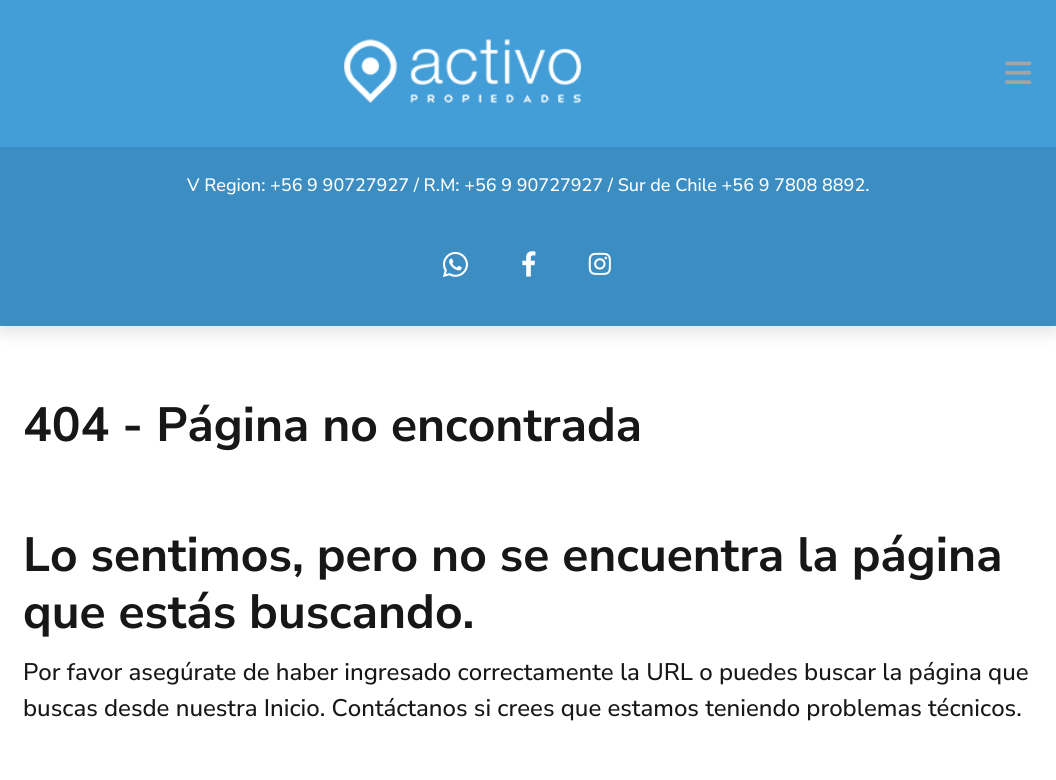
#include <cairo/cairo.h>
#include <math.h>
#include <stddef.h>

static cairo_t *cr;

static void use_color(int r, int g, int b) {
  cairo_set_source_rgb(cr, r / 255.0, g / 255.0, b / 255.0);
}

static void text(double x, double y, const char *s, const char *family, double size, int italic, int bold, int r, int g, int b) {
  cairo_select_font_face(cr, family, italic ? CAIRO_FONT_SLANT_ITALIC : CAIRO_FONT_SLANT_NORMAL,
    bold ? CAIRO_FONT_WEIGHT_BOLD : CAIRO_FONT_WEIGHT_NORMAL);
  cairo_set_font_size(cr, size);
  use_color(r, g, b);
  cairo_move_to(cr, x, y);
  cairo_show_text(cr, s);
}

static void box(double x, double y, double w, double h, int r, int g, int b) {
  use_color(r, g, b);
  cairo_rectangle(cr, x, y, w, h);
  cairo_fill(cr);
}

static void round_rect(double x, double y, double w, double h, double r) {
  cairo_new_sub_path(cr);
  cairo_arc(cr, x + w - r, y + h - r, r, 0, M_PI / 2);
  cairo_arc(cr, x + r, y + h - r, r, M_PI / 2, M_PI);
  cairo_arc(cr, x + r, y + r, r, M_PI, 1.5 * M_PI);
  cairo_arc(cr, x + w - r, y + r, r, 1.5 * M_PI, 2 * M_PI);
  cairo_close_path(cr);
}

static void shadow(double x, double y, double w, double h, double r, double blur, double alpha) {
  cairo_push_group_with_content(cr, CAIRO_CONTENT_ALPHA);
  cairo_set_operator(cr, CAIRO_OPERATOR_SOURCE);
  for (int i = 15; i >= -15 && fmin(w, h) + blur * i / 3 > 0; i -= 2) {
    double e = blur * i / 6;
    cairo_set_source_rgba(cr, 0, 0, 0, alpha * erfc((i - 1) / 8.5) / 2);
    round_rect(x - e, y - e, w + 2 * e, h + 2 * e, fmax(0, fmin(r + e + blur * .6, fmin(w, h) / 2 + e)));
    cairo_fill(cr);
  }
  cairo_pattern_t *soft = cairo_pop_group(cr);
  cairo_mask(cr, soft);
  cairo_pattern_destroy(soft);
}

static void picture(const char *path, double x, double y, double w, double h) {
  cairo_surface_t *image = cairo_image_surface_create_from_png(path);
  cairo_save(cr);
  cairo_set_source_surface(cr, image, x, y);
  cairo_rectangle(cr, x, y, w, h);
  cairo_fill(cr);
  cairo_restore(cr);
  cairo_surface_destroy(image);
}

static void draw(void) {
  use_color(255, 255, 255);
  cairo_paint(cr);
  use_color(0, 0, 0);
  shadow(0, 8, 1056, 325, 0, 7.5, 0.1);
  box(0, 0, 1056, 147, 67, 158, 216);
  picture("img_01.png", 344, 39, 237, 64);
  picture("img_02.png", 1005, 61, 27, 23);
  box(0, 147, 1056, 179, 60, 142, 194);
  picture("img_03.png", 442, 251, 26, 26);
  picture("img_04.png", 522, 251, 14, 26);
  picture("img_05.png", 588, 252, 23, 23);
  text(187, 191, "V Region: +56 9 90727927 / R.M: +56 9 90727927 / Sur de Chile +56 9 7808 8892.", "Nunito Sans Medium", 18, 0, 0, 255, 255, 255);
  text(23, 441, "404 - Página no encontrada", "Nunito Sans", 48, 0, 1, 23, 23, 23);
  text(23, 571, "Lo sentimos, pero no se encuentra la página", "Nunito Sans", 48, 0, 1, 23, 23, 23);
  text(23, 628, "que estás buscando.", "Nunito Sans", 48, 0, 1, 23, 23, 23);
  text(23, 680, "Por favor asegúrate de haber ingresado correctamente la URL o puedes buscar la página que", "Nunito Sans Medium", 24, 0, 0, 23, 23, 23);
  text(23, 716, "buscas desde nuestra Inicio. Contáctanos si crees que estamos teniendo problemas técnicos.", "Nunito Sans Medium", 24, 0, 0, 23, 23, 23);
}

int main(void) {
  cairo_surface_t *surface = cairo_image_surface_create(CAIRO_FORMAT_RGB24, 1056, 780);
  cr = cairo_create(surface);
  cairo_font_options_t *options = cairo_font_options_create();
  cairo_font_options_set_hint_metrics(options, CAIRO_HINT_METRICS_OFF);
  cairo_font_options_set_hint_style(options, CAIRO_HINT_STYLE_NONE);
  cairo_set_font_options(cr, options);
  cairo_set_miter_limit(cr, 4);
  draw();
  cairo_surface_write_to_png(surface, "out.png");
  cairo_font_options_destroy(options);
  cairo_destroy(cr);
  cairo_surface_destroy(surface);
  return 0;
}
